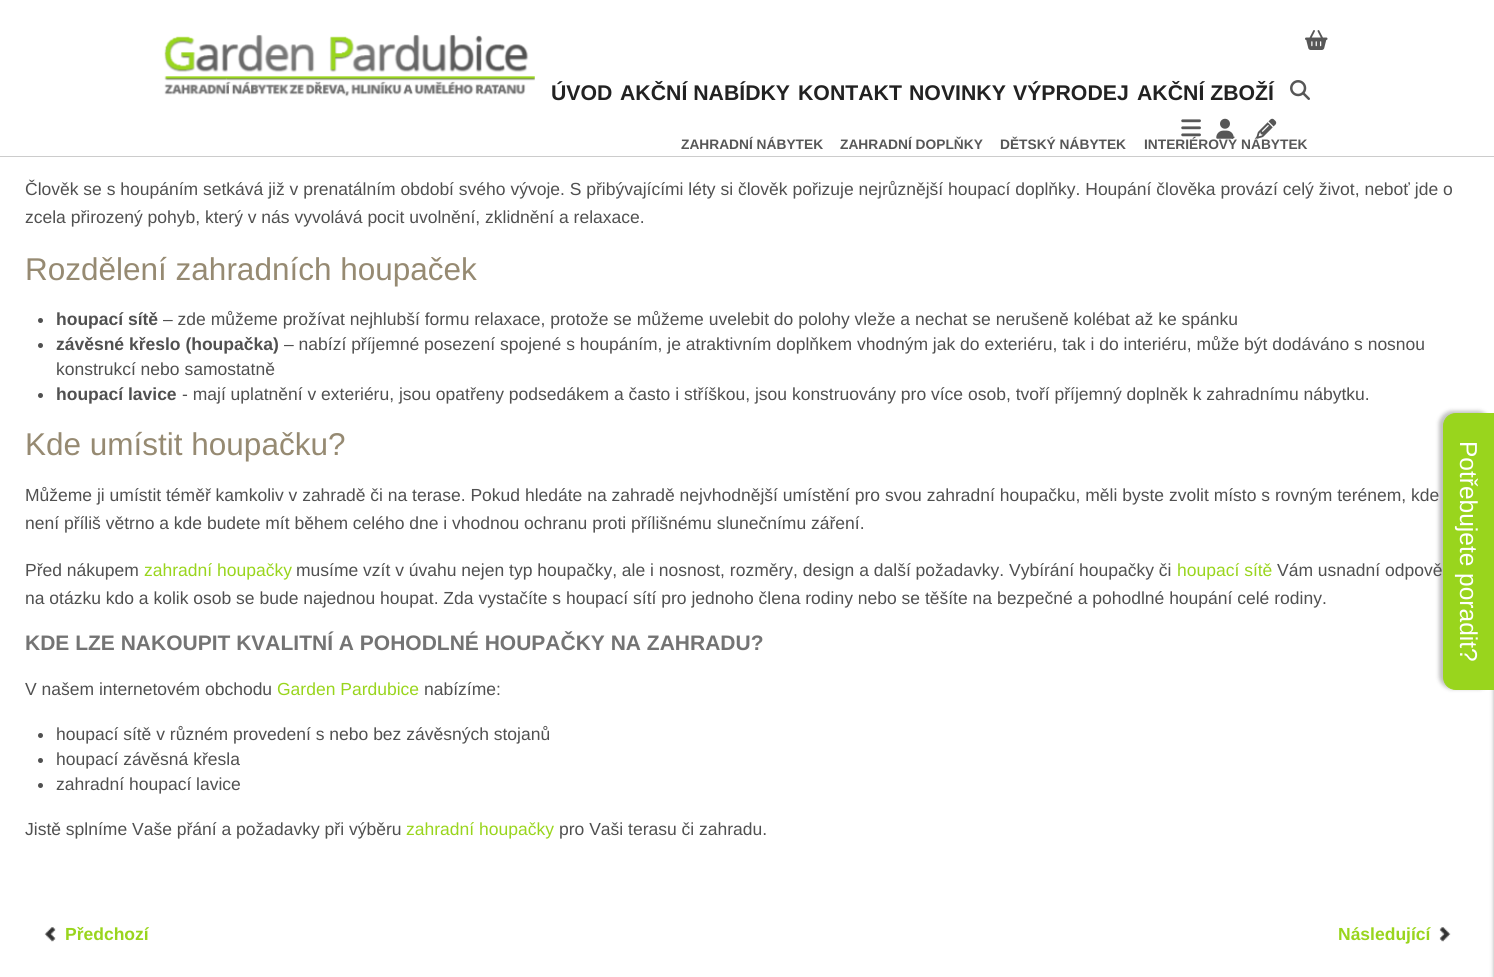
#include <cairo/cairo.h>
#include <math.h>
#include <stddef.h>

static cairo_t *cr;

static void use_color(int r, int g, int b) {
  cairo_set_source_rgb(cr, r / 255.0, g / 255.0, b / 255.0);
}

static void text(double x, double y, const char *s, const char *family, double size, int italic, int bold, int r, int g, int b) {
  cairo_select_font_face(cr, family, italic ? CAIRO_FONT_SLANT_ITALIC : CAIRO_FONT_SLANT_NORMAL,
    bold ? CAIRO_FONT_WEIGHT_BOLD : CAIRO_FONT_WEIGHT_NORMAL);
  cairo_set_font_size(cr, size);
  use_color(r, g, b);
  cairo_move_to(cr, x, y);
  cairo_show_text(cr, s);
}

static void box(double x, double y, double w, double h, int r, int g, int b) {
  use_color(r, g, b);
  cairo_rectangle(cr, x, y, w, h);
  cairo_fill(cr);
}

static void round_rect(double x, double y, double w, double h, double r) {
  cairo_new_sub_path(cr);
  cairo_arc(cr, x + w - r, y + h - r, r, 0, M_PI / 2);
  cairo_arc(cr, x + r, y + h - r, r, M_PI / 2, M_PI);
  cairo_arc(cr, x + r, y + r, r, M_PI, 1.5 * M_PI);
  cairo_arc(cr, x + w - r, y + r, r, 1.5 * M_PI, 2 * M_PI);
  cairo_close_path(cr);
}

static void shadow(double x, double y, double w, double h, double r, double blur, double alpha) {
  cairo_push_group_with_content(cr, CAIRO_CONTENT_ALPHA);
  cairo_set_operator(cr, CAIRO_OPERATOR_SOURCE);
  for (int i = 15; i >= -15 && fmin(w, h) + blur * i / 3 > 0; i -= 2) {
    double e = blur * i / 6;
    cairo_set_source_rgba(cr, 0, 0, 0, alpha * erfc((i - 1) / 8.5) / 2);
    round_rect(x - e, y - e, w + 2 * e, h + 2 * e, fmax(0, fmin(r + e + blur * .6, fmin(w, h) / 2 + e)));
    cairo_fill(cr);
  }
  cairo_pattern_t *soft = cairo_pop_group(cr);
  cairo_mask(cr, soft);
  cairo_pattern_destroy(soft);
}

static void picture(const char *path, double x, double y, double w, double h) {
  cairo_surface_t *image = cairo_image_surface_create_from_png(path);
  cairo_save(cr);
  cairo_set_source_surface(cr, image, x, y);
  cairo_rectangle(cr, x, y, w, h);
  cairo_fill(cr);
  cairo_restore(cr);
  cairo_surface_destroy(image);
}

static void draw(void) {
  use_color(255, 255, 255);
  cairo_paint(cr);
  box(0, 156, 1494, 1, 204, 204, 204);
  picture("img_01.png", 164, 34, 371, 63);
  picture("img_02.png", 1305, 30, 23, 20);
  picture("img_03.png", 1290, 80, 20, 20);
  picture("img_05.png", 1216, 118, 18, 21);
  picture("img_06.png", 1256, 118, 21, 21);
  use_color(80, 80, 80);
  cairo_arc(cr, 40.5, 320.5, 2.5, 0, 2 * M_PI);
  cairo_fill(cr);
  cairo_arc(cr, 40.5, 345.5, 2.5, 0, 2 * M_PI);
  cairo_fill(cr);
  cairo_arc(cr, 40.5, 395.5, 2.5, 0, 2 * M_PI);
  cairo_fill(cr);
  cairo_arc(cr, 40.5, 735.5, 2.5, 0, 2 * M_PI);
  cairo_fill(cr);
  cairo_arc(cr, 40.5, 760.5, 2.5, 0, 2 * M_PI);
  cairo_fill(cr);
  cairo_arc(cr, 40.5, 785.5, 2.5, 0, 2 * M_PI);
  cairo_fill(cr);
  picture("img_07.png", 44, 927, 12, 15);
  picture("img_08.png", 1439, 927, 12, 15);
  use_color(0, 0, 0);
  shadow(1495, 413, 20, 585, 13, 2.5, 0.5);
  shadow(1439, 411, 52, 278, 13, 2, 0.25);
  use_color(153, 213, 29);
  cairo_new_path(cr);
  cairo_move_to(cr, 1456, 413.5);
  cairo_line_to(cr, 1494.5, 413.5);
  cairo_line_to(cr, 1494.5, 689.5);
  cairo_line_to(cr, 1456, 689.5);
  cairo_curve_to(cr, 1449, 689.5, 1443.5, 684, 1443.5, 677);
  cairo_line_to(cr, 1443.5, 426);
  cairo_curve_to(cr, 1443.5, 419, 1449, 413.5, 1456, 413.5);
  cairo_close_path(cr);
  cairo_fill_preserve(cr);
  cairo_set_line_width(cr, 1);
  cairo_stroke(cr);
  text(551, 100, "ÚVOD", "Liberation Sans", 21.25, 0, 1, 34, 34, 34);
  text(620, 100, "AKČNÍ NABÍDKY", "Liberation Sans", 21.25, 0, 1, 34, 34, 34);
  text(798, 100, "KONTAKT", "Liberation Sans", 21.25, 0, 1, 34, 34, 34);
  text(909, 100, "NOVINKY", "Liberation Sans", 21.25, 0, 1, 34, 34, 34);
  text(1013, 100, "VÝPRODEJ", "Liberation Sans", 21.25, 0, 1, 34, 34, 34);
  text(1137, 100, "AKČNÍ ZBOŽÍ", "Liberation Sans", 21.25, 0, 1, 34, 34, 34);
  text(681, 149, "ZAHRADNÍ NÁBYTEK", "Liberation Sans", 13.75, 0, 1, 87, 87, 87);
  text(840, 149, "ZAHRADNÍ DOPLŇKY", "Liberation Sans", 13.75, 0, 1, 87, 87, 87);
  text(1000, 149, "DĚTSKÝ NÁBYTEK", "Liberation Sans", 13.75, 0, 1, 87, 87, 87);
  text(1144, 149, "INTERIÉROVÝ NÁBYTEK", "Liberation Sans", 13.75, 0, 1, 87, 87, 87);
  picture("img_04.png", 1181, 119, 20, 18);
  text(25, 195, "Člověk se s houpáním setkává již v prenatálním období svého vývoje. S přibývajícími léty si člověk pořizuje nejrůznější houpací doplňky. Houpání člověka provází celý život, neboť jde o", "Liberation Sans", 17.5, 0, 0, 80, 80, 80);
  text(25, 223, "zcela přirozený pohyb, který v nás vyvolává pocit uvolnění, zklidnění a relaxace.", "Liberation Sans", 17.5, 0, 0, 80, 80, 80);
  text(25, 280, "Rozdělení zahradních houpaček", "Liberation Sans", 31.5, 0, 0, 150, 138, 114);
  text(56, 325, "houpací sítě", "Liberation Sans", 17.5, 0, 1, 80, 80, 80);
  text(163, 325, "– zde můžeme prožívat nejhlubší formu relaxace, protože se můžeme uvelebit do polohy vleže a nechat se nerušeně kolébat až ke spánku", "Liberation Sans", 17.5, 0, 0, 80, 80, 80);
  text(56, 350, "závěsné křeslo (houpačka)", "Liberation Sans", 17.5, 0, 1, 80, 80, 80);
  text(284, 350, "– nabízí příjemné posezení spojené s houpáním, je atraktivním doplňkem vhodným jak do exteriéru, tak i do interiéru, může být dodáváno s nosnou", "Liberation Sans", 17.5, 0, 0, 80, 80, 80);
  text(56, 375, "konstrukcí nebo samostatně", "Liberation Sans", 17.5, 0, 0, 80, 80, 80);
  text(56, 400, "houpací lavice", "Liberation Sans", 17.5, 0, 1, 80, 80, 80);
  text(182, 400, "- mají uplatnění v exteriéru, jsou opatřeny podsedákem a často i stříškou, jsou konstruovány pro více osob, tvoří příjemný doplněk k zahradnímu nábytku.", "Liberation Sans", 17.5, 0, 0, 80, 80, 80);
  text(25, 455, "Kde umístit houpačku?", "Liberation Sans", 31.5, 0, 0, 150, 138, 114);
  text(25, 501, "Můžeme ji umístit téměř kamkoliv v zahradě či na terase. Pokud hledáte na zahradě nejvhodnější umístění pro svou zahradní houpačku, měli byste zvolit místo s rovným terénem, kde", "Liberation Sans", 17.5, 0, 0, 80, 80, 80);
  text(25, 529, "není příliš větrno a kde budete mít během celého dne i vhodnou ochranu proti přílišnému slunečnímu záření.", "Liberation Sans", 17.5, 0, 0, 80, 80, 80);
  text(25, 576, "Před nákupem", "Liberation Sans", 17.5, 0, 0, 80, 80, 80);
  text(144, 576, "zahradní houpačky", "Liberation Sans", 17.5, 0, 0, 153, 213, 29);
  text(296, 576, "musíme vzít v úvahu nejen typ houpačky, ale i nosnost, rozměry, design a další požadavky. Vybírání houpačky či", "Liberation Sans", 17.5, 0, 0, 80, 80, 80);
  text(1177, 576, "houpací sítě", "Liberation Sans", 17.5, 0, 0, 153, 213, 29);
  text(1277, 576, "Vám usnadní odpově", "Liberation Sans", 17.5, 0, 0, 80, 80, 80);
  text(25, 604, "na otázku kdo a kolik osob se bude najednou houpat. Zda vystačíte s houpací sítí pro jednoho člena rodiny nebo se těšíte na bezpečné a pohodlné houpání celé rodiny.", "Liberation Sans", 17.5, 0, 0, 80, 80, 80);
  text(25, 650, "KDE LZE NAKOUPIT KVALITNÍ A POHODLNÉ HOUPAČKY NA ZAHRADU?", "Liberation Sans", 21, 0, 1, 116, 116, 116);
  text(25, 695, "V našem internetovém obchodu", "Liberation Sans", 17.5, 0, 0, 80, 80, 80);
  text(277, 695, "Garden Pardubice", "Liberation Sans", 17.5, 0, 0, 153, 213, 29);
  text(424, 695, "nabízíme:", "Liberation Sans", 17.5, 0, 0, 80, 80, 80);
  text(56, 740, "houpací sítě v různém provedení s nebo bez závěsných stojanů", "Liberation Sans", 17.5, 0, 0, 80, 80, 80);
  text(56, 765, "houpací závěsná křesla", "Liberation Sans", 17.5, 0, 0, 80, 80, 80);
  text(56, 790, "zahradní houpací lavice", "Liberation Sans", 17.5, 0, 0, 80, 80, 80);
  text(25, 835, "Jistě splníme Vaše přání a požadavky při výběru", "Liberation Sans", 17.5, 0, 0, 80, 80, 80);
  text(406, 835, "zahradní houpačky", "Liberation Sans", 17.5, 0, 0, 153, 213, 29);
  text(559, 835, "pro Vaši terasu či zahradu.", "Liberation Sans", 17.5, 0, 0, 80, 80, 80);
  text(65, 940, "Předchozí", "Liberation Sans", 17.5, 0, 1, 153, 213, 29);
  text(1338, 940, "Následující", "Liberation Sans", 17.5, 0, 1, 153, 213, 29);
  cairo_save(cr);
  cairo_translate(cr, 1460, 441);
  cairo_rotate(cr, 90 * M_PI / 180);
  text(0, 0, "Potřebujete poradit?", "Liberation Sans", 24.5, 0, 0, 255, 255, 255);
  cairo_restore(cr);
}

int main(void) {
  cairo_surface_t *surface = cairo_image_surface_create(CAIRO_FORMAT_RGB24, 1494, 977);
  cr = cairo_create(surface);
  cairo_font_options_t *options = cairo_font_options_create();
  cairo_font_options_set_hint_metrics(options, CAIRO_HINT_METRICS_OFF);
  cairo_font_options_set_hint_style(options, CAIRO_HINT_STYLE_NONE);
  cairo_set_font_options(cr, options);
  cairo_set_miter_limit(cr, 4);
  draw();
  cairo_surface_write_to_png(surface, "out.png");
  cairo_font_options_destroy(options);
  cairo_destroy(cr);
  cairo_surface_destroy(surface);
  return 0;
}
